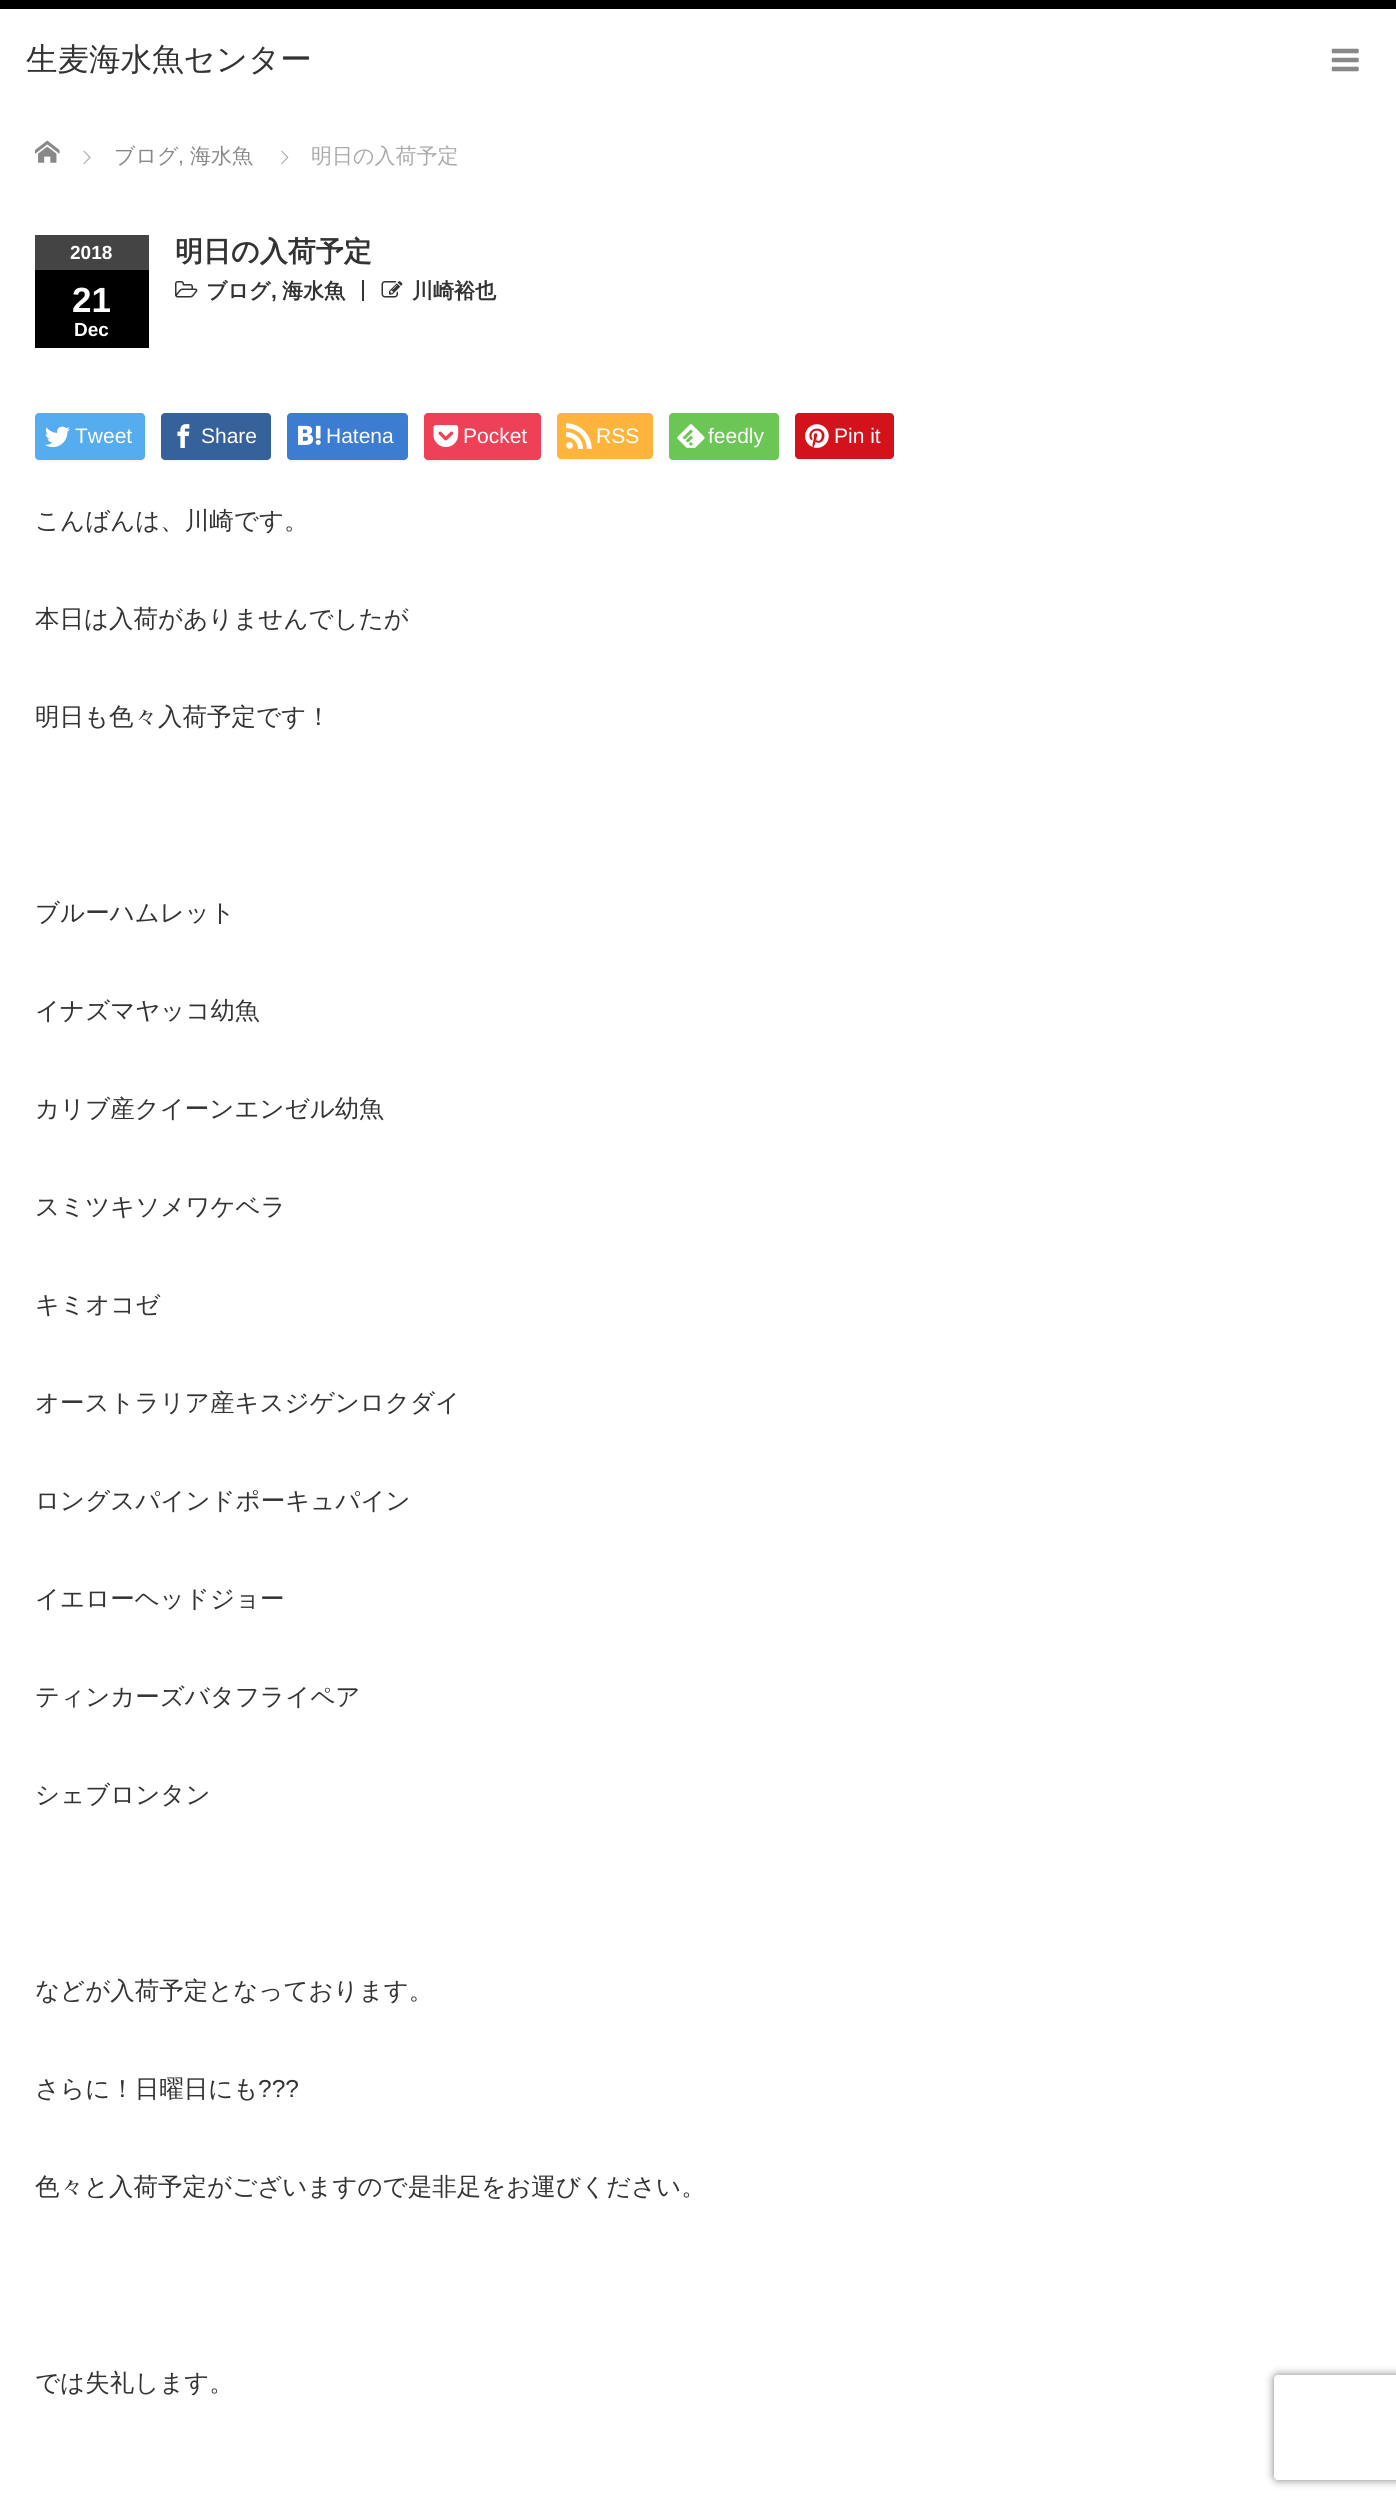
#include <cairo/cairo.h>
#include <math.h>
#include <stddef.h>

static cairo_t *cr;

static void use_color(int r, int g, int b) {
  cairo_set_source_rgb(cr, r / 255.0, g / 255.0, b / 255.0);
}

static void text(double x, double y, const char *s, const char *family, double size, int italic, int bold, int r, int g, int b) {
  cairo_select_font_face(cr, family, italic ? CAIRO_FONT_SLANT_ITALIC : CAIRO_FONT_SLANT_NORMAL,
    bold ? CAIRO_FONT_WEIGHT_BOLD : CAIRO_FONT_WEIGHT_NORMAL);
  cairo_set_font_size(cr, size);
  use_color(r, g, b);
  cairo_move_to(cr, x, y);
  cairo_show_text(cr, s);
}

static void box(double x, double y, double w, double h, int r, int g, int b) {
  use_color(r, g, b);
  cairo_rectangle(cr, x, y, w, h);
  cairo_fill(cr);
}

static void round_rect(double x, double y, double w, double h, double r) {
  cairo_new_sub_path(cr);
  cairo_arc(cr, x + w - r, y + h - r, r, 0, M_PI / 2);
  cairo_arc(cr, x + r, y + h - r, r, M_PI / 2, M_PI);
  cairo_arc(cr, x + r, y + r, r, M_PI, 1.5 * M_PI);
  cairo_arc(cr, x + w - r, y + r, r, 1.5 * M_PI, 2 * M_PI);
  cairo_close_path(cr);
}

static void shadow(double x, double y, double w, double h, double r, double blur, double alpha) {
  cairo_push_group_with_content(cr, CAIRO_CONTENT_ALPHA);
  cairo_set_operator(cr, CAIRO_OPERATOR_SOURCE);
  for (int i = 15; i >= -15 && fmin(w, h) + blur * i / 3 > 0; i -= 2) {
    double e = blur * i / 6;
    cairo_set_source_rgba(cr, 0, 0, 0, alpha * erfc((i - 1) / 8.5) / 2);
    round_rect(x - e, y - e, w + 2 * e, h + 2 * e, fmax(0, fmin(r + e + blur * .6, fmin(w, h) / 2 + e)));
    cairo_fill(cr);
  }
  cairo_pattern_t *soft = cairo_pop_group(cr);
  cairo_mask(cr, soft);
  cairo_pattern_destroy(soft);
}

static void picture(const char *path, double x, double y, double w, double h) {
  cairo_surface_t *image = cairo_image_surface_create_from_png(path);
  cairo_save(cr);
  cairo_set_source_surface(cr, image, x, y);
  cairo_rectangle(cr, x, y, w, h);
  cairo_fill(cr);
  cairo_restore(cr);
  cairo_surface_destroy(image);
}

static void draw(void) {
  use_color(255, 255, 255);
  cairo_paint(cr);
  box(0, 0, 1396, 9, 0, 0, 0);
  picture("img_01.png", 1331, 48, 28, 24);
  picture("img_02.png", 35, 140, 25, 23);
  picture("img_03.png", 83, 150, 8, 14);
  picture("img_04.png", 281, 150, 8, 15);
  box(362, 280, 2, 21, 51, 51, 51);
  picture("img_05.png", 175, 281, 23, 17);
  picture("img_06.png", 381, 281, 22, 17);
  use_color(247, 247, 247);
  cairo_new_path(cr);
  cairo_move_to(cr, 35, 457);
  cairo_line_to(cr, 35, 458);
  cairo_curve_to(cr, 35, 460, 37, 462, 39, 462);
  cairo_line_to(cr, 141, 462);
  cairo_curve_to(cr, 143, 462, 145, 460, 145, 458);
  cairo_curve_to(cr, 144, 459, 143, 460, 142, 460);
  cairo_line_to(cr, 38, 460);
  cairo_curve_to(cr, 37, 460, 35, 459, 35, 457);
  cairo_close_path(cr);
  cairo_fill(cr);
  use_color(85, 172, 238);
  round_rect(35, 413, 110, 47, 4);
  cairo_fill(cr);
  picture("img_07.png", 45, 426, 25, 22);
  use_color(247, 247, 247);
  cairo_new_path(cr);
  cairo_move_to(cr, 161, 457);
  cairo_line_to(cr, 161, 458);
  cairo_curve_to(cr, 161, 460, 163, 462, 165, 462);
  cairo_line_to(cr, 267, 462);
  cairo_curve_to(cr, 269, 462, 271, 460, 271, 458);
  cairo_curve_to(cr, 270, 459, 269, 460, 268, 460);
  cairo_line_to(cr, 164, 460);
  cairo_curve_to(cr, 163, 460, 161, 459, 161, 457);
  cairo_close_path(cr);
  cairo_fill(cr);
  use_color(53, 98, 154);
  round_rect(161, 413, 110, 47, 4);
  cairo_fill(cr);
  picture("img_08.png", 177, 424, 13, 24);
  use_color(247, 247, 247);
  cairo_new_path(cr);
  cairo_move_to(cr, 287, 457);
  cairo_curve_to(cr, 287, 459, 288, 462, 291, 462);
  cairo_line_to(cr, 385, 462);
  cairo_curve_to(cr, 410, 462, 408, 467, 408, 445);
  cairo_line_to(cr, 408, 418);
  cairo_line_to(cr, 408, 457);
  cairo_curve_to(cr, 408, 459, 406, 460, 404, 460);
  cairo_line_to(cr, 290, 460);
  cairo_curve_to(cr, 289, 460, 287, 459, 287, 457);
  cairo_close_path(cr);
  cairo_fill(cr);
  use_color(60, 125, 209);
  round_rect(287, 413, 121, 47, 4);
  cairo_fill(cr);
  picture("img_09.png", 298, 425, 23, 20);
  use_color(247, 247, 247);
  cairo_new_path(cr);
  cairo_move_to(cr, 424, 459);
  cairo_curve_to(cr, 425, 465, 440, 462, 446, 462);
  cairo_line_to(cr, 519, 462);
  cairo_curve_to(cr, 543, 462, 541, 466, 541, 445);
  cairo_line_to(cr, 541, 418);
  cairo_line_to(cr, 541, 457);
  cairo_curve_to(cr, 541, 459, 539, 460, 537, 460);
  cairo_line_to(cr, 427, 460);
  cairo_curve_to(cr, 426, 460, 425, 460, 424, 459);
  cairo_close_path(cr);
  cairo_fill(cr);
  use_color(238, 64, 86);
  round_rect(424, 413, 117, 47, 4);
  cairo_fill(cr);
  picture("img_10.png", 433, 425, 26, 23);
  use_color(247, 247, 247);
  cairo_new_path(cr);
  cairo_move_to(cr, 557, 457);
  cairo_curve_to(cr, 559, 463, 570, 460, 576, 460);
  cairo_line_to(cr, 634, 460);
  cairo_curve_to(cr, 655, 460, 653, 463, 653, 444);
  cairo_line_to(cr, 653, 418);
  cairo_line_to(cr, 653, 455);
  cairo_curve_to(cr, 653, 457, 651, 458, 649, 458);
  cairo_line_to(cr, 560, 458);
  cairo_curve_to(cr, 559, 458, 558, 458, 557, 457);
  cairo_close_path(cr);
  cairo_fill(cr);
  use_color(255, 181, 60);
  round_rect(557, 413, 96, 46, 4);
  cairo_fill(cr);
  picture("img_11.png", 566, 423, 26, 26);
  use_color(247, 247, 247);
  cairo_new_path(cr);
  cairo_move_to(cr, 669, 459);
  cairo_curve_to(cr, 670, 465, 684, 462, 690, 462);
  cairo_line_to(cr, 758, 462);
  cairo_curve_to(cr, 781, 462, 779, 466, 779, 445);
  cairo_line_to(cr, 779, 418);
  cairo_line_to(cr, 779, 457);
  cairo_curve_to(cr, 779, 459, 777, 460, 775, 460);
  cairo_line_to(cr, 672, 460);
  cairo_curve_to(cr, 671, 460, 670, 460, 669, 459);
  cairo_close_path(cr);
  cairo_fill(cr);
  use_color(108, 198, 85);
  round_rect(669, 413, 110, 47, 4);
  cairo_fill(cr);
  picture("img_12.png", 677, 424, 28, 24);
  use_color(247, 247, 247);
  cairo_new_path(cr);
  cairo_move_to(cr, 795, 457);
  cairo_curve_to(cr, 796, 459, 797, 460, 799, 460);
  cairo_line_to(cr, 890, 460);
  cairo_curve_to(cr, 892, 460, 894, 458, 894, 456);
  cairo_line_to(cr, 892, 458);
  cairo_line_to(cr, 798, 458);
  cairo_curve_to(cr, 797, 458, 796, 458, 795, 457);
  cairo_close_path(cr);
  cairo_fill(cr);
  use_color(212, 18, 28);
  round_rect(795, 413, 99, 46, 4);
  cairo_fill(cr);
  picture("img_13.png", 805, 424, 24, 24);
  box(35, 270, 114, 78, 0, 0, 0);
  box(35, 235, 114, 35, 68, 68, 68);
  cairo_save(cr);
  cairo_set_fill_rule(cr, CAIRO_FILL_RULE_EVEN_ODD);
  cairo_new_path(cr);
  cairo_move_to(cr, 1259, 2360);
  cairo_line_to(cr, 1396, 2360);
  cairo_line_to(cr, 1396, 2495);
  cairo_line_to(cr, 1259, 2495);
  cairo_close_path(cr);
  cairo_move_to(cr, 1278, 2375);
  cairo_line_to(cr, 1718, 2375);
  cairo_curve_to(cr, 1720, 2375, 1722, 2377, 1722, 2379);
  cairo_line_to(cr, 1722, 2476);
  cairo_curve_to(cr, 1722, 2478, 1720, 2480, 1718, 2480);
  cairo_line_to(cr, 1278, 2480);
  cairo_curve_to(cr, 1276, 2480, 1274, 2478, 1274, 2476);
  cairo_line_to(cr, 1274, 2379);
  cairo_curve_to(cr, 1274, 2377, 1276, 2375, 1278, 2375);
  cairo_close_path(cr);
  cairo_clip(cr);
  use_color(128, 128, 128);
  shadow(1274, 2375, 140, 105, 4, 4.5, 1);
  cairo_restore(cr);
  text(26, 70, "生麦海水魚センター", "WenQuanYi Zen Hei Medium", 31.5, 0, 0, 51, 51, 51);
  text(114, 163, "ブログ", "WenQuanYi Zen Hei Medium", 21, 0, 0, 136, 136, 136);
  text(178, 163, ",", "Liberation Sans", 21, 0, 0, 136, 136, 136);
  text(190, 163, "海水魚", "WenQuanYi Zen Hei Medium", 21, 0, 0, 136, 136, 136);
  text(311, 163, "明日の入荷予定", "WenQuanYi Zen Hei Medium", 21, 0, 0, 170, 170, 170);
  text(175, 261, "明日の入荷予定", "WenQuanYi Zen Hei", 28, 0, 1, 51, 51, 51);
  text(206, 298, "ブログ", "WenQuanYi Zen Hei", 21, 0, 1, 51, 51, 51);
  text(271, 298, ",", "Liberation Sans", 21, 0, 1, 51, 51, 51);
  text(282, 298, "海水魚", "WenQuanYi Zen Hei", 21, 0, 1, 51, 51, 51);
  text(412, 298, "川崎裕也", "WenQuanYi Zen Hei", 21, 0, 1, 51, 51, 51);
  text(75, 443, "Tweet", "Liberation Sans", 21, 0, 0, 255, 255, 255);
  text(201, 443, "Share", "Liberation Sans", 21, 0, 0, 255, 255, 255);
  text(326, 443, "Hatena", "Liberation Sans", 21, 0, 0, 255, 255, 255);
  text(463, 443, "Pocket", "Liberation Sans", 21, 0, 0, 255, 255, 255);
  text(596, 443, "RSS", "Liberation Sans", 21, 0, 0, 255, 255, 255);
  text(708, 443, "feedly", "Liberation Sans", 21, 0, 0, 255, 255, 255);
  text(834, 443, "Pin it", "Liberation Sans", 21, 0, 0, 255, 255, 255);
  text(35, 529, "こんばんは、川崎です。", "WenQuanYi Zen Hei Medium", 24.5, 0, 0, 51, 51, 51);
  text(35, 627, "本日は入荷がありませんでしたが", "WenQuanYi Zen Hei Medium", 24.5, 0, 0, 51, 51, 51);
  text(35, 725, "明日も色々入荷予定です！", "WenQuanYi Zen Hei Medium", 24.5, 0, 0, 51, 51, 51);
  text(35, 921, "ブルーハムレット", "WenQuanYi Zen Hei Medium", 24.5, 0, 0, 51, 51, 51);
  text(35, 1019, "イナズマヤッコ幼魚", "WenQuanYi Zen Hei Medium", 24.5, 0, 0, 51, 51, 51);
  text(35, 1117, "カリブ産クイーンエンゼル幼魚", "WenQuanYi Zen Hei Medium", 24.5, 0, 0, 51, 51, 51);
  text(35, 1215, "スミツキソメワケベラ", "WenQuanYi Zen Hei Medium", 24.5, 0, 0, 51, 51, 51);
  text(35, 1313, "キミオコゼ", "WenQuanYi Zen Hei Medium", 24.5, 0, 0, 51, 51, 51);
  text(35, 1411, "オーストラリア産キスジゲンロクダイ", "WenQuanYi Zen Hei Medium", 24.5, 0, 0, 51, 51, 51);
  text(35, 1509, "ロングスパインドポーキュパイン", "WenQuanYi Zen Hei Medium", 24.5, 0, 0, 51, 51, 51);
  text(35, 1607, "イエローヘッドジョー", "WenQuanYi Zen Hei Medium", 24.5, 0, 0, 51, 51, 51);
  text(35, 1705, "ティンカーズバタフライペア", "WenQuanYi Zen Hei Medium", 24.5, 0, 0, 51, 51, 51);
  text(35, 1803, "シェブロンタン", "WenQuanYi Zen Hei Medium", 24.5, 0, 0, 51, 51, 51);
  text(35, 1999, "などが入荷予定となっております。", "WenQuanYi Zen Hei Medium", 24.5, 0, 0, 51, 51, 51);
  text(35, 2097, "さらに！日曜日にも", "WenQuanYi Zen Hei Medium", 24.5, 0, 0, 51, 51, 51);
  text(258, 2097, "?\077?", "Liberation Sans", 24.5, 0, 0, 51, 51, 51);
  text(35, 2195, "色々と入荷予定がございますので是非足をお運びください。", "WenQuanYi Zen Hei Medium", 24.5, 0, 0, 51, 51, 51);
  text(35, 2391, "では失礼します。", "WenQuanYi Zen Hei Medium", 24.5, 0, 0, 51, 51, 51);
  text(70, 259, "2018", "Liberation Sans", 19, 0, 1, 255, 255, 255);
  text(72, 312, "21", "Liberation Sans", 35, 0, 1, 255, 255, 255);
  text(74, 336, "Dec", "Liberation Sans", 19, 0, 1, 255, 255, 255);
}

int main(void) {
  cairo_surface_t *surface = cairo_image_surface_create(CAIRO_FORMAT_RGB24, 1396, 2503);
  cr = cairo_create(surface);
  cairo_font_options_t *options = cairo_font_options_create();
  cairo_font_options_set_hint_metrics(options, CAIRO_HINT_METRICS_OFF);
  cairo_font_options_set_hint_style(options, CAIRO_HINT_STYLE_NONE);
  cairo_set_font_options(cr, options);
  cairo_set_miter_limit(cr, 4);
  draw();
  cairo_surface_write_to_png(surface, "out.png");
  cairo_font_options_destroy(options);
  cairo_destroy(cr);
  cairo_surface_destroy(surface);
  return 0;
}
